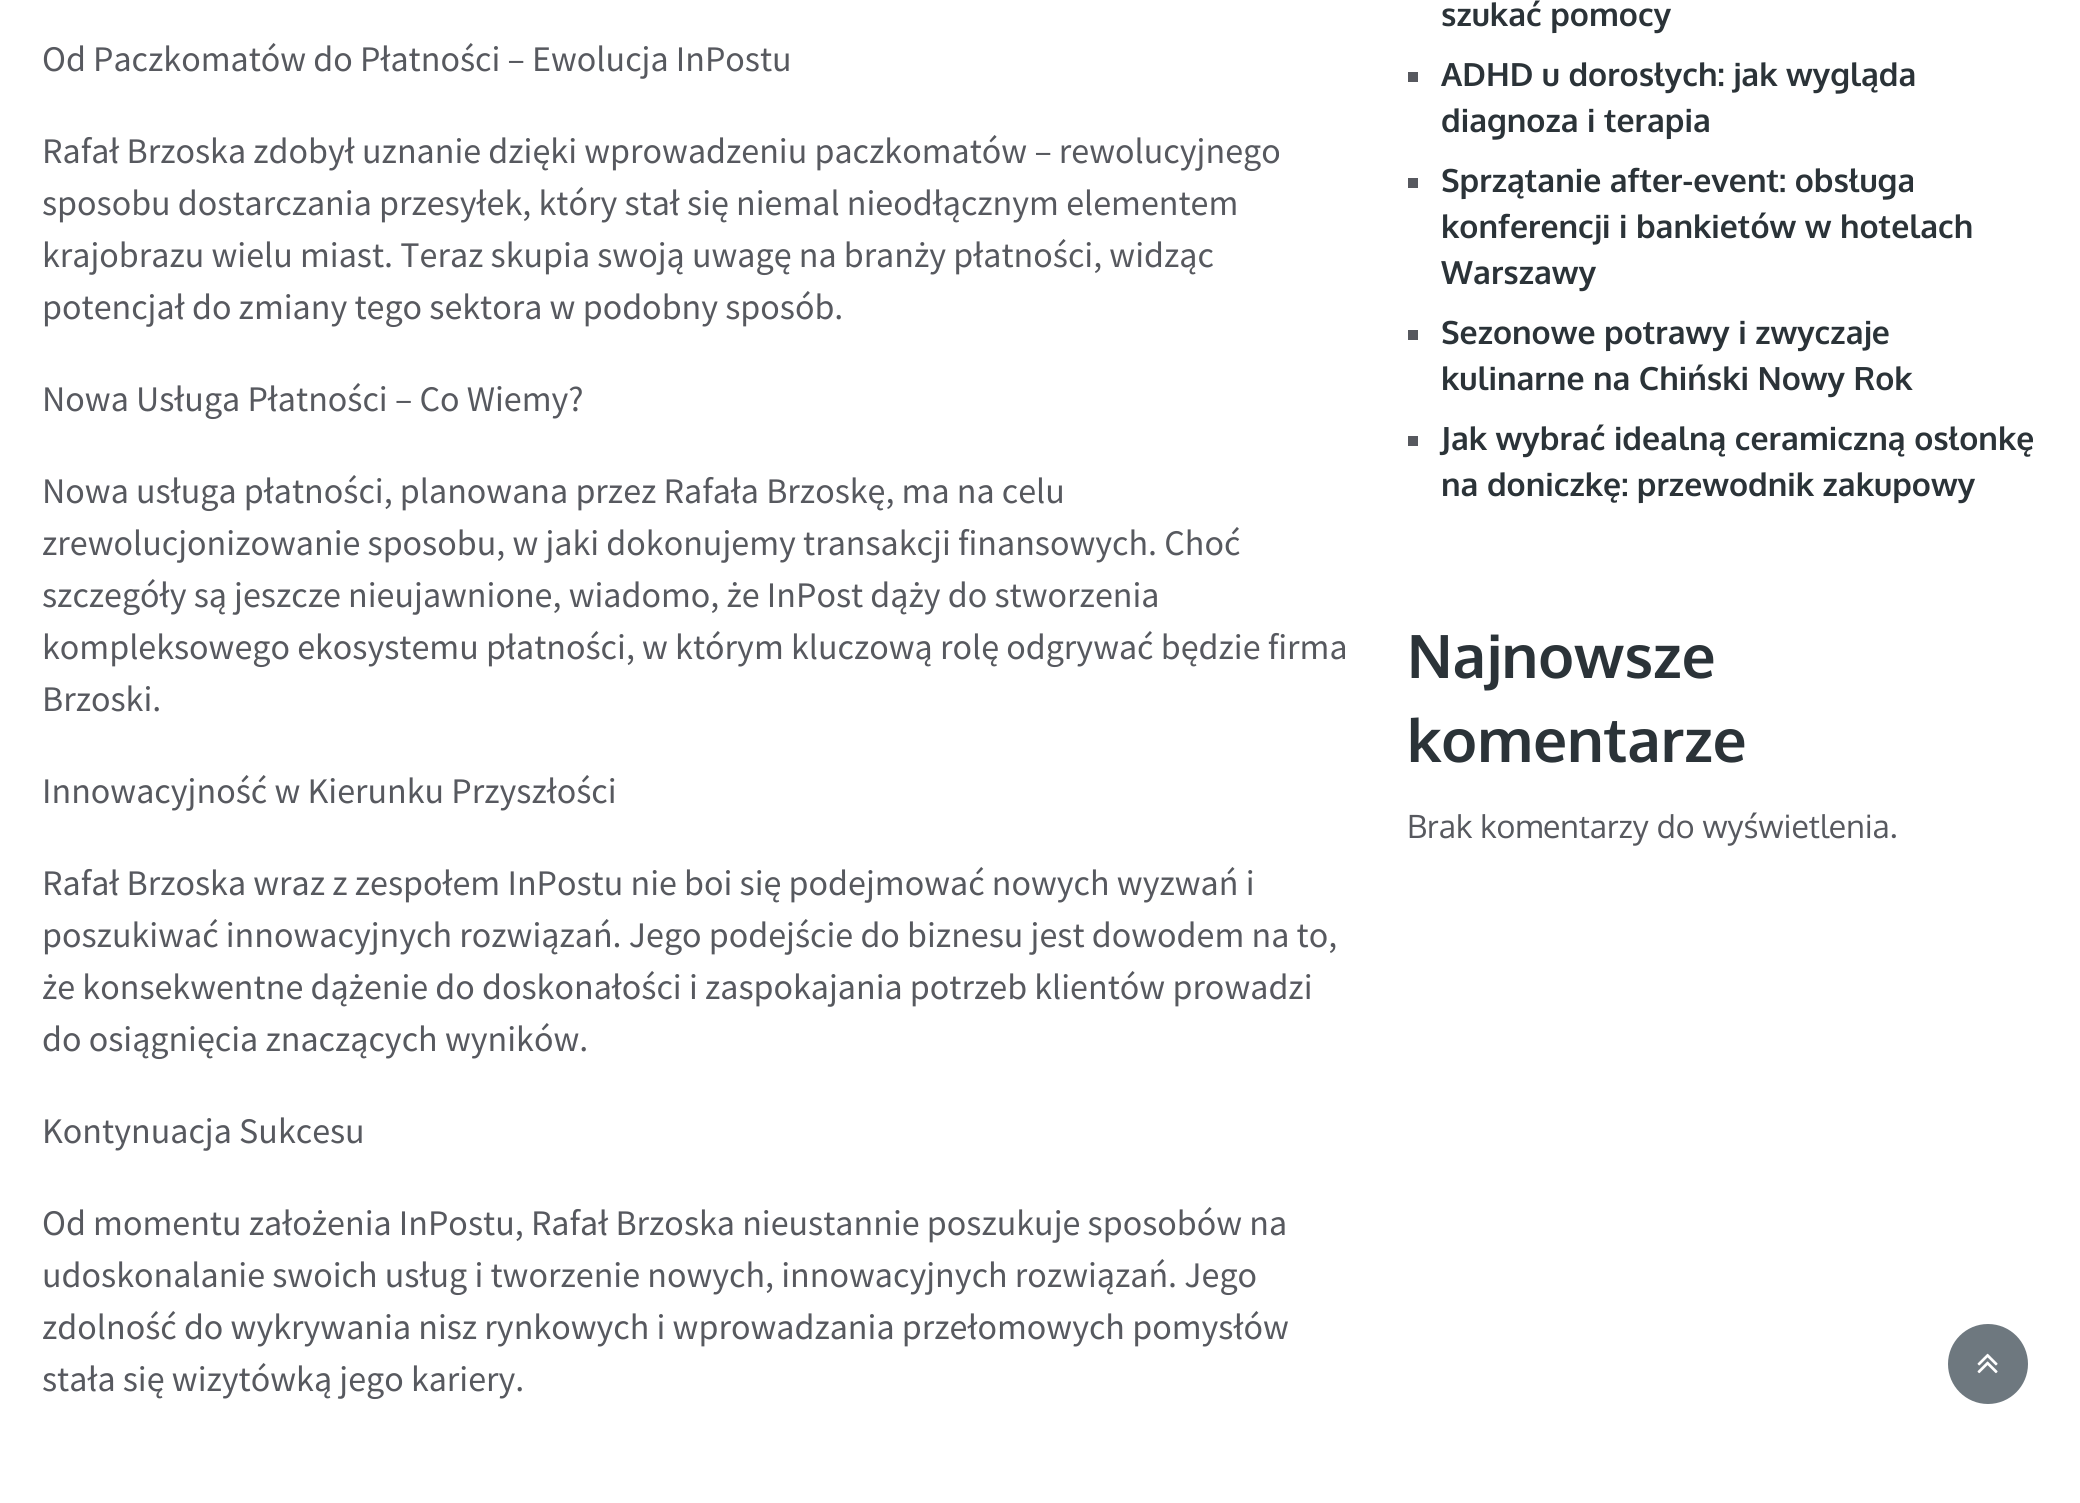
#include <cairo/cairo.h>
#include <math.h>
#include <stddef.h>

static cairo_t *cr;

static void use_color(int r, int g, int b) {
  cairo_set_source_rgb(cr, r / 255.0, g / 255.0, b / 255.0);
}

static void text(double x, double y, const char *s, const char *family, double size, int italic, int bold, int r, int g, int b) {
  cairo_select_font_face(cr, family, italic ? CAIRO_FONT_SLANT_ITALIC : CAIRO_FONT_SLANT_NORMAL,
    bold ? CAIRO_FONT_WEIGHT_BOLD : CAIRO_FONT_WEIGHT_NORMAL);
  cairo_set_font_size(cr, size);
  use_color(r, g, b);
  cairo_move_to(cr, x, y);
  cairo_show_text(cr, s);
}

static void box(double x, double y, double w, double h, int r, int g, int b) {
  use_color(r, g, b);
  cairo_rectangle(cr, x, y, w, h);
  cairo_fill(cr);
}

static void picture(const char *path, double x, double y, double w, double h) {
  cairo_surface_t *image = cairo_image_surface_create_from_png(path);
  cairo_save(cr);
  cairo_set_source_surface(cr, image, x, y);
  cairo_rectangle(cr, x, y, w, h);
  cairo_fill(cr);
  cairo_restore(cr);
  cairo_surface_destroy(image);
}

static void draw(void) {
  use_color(255, 255, 255);
  cairo_paint(cr);
  box(1408, 72, 10, 10, 87, 89, 95);
  box(1408, 178, 10, 10, 87, 89, 95);
  box(1408, 330, 10, 10, 87, 89, 95);
  box(1408, 436, 10, 10, 87, 89, 95);
  use_color(110, 120, 127);
  cairo_arc(cr, 1988, 1364, 40, 0, 2 * M_PI);
  cairo_fill(cr);
  picture("img_01.png", 1977, 1353, 21, 21);
  text(42, 71, "Od Paczkomatów do Płatności – Ewolucja InPostu", "Source Sans Pro", 36, 0, 0, 87, 89, 95);
  text(42, 163, "Rafał Brzoska zdobył uznanie dzięki wprowadzeniu paczkomatów – rewolucyjnego", "Source Sans Pro", 36, 0, 0, 87, 89, 95);
  text(42, 215, "sposobu dostarczania przesyłek, który stał się niemal nieodłącznym elementem", "Source Sans Pro", 36, 0, 0, 87, 89, 95);
  text(42, 267, "krajobrazu wielu miast. Teraz skupia swoją uwagę na branży płatności, widząc", "Source Sans Pro", 36, 0, 0, 87, 89, 95);
  text(42, 319, "potencjał do zmiany tego sektora w podobny sposób.", "Source Sans Pro", 36, 0, 0, 87, 89, 95);
  text(42, 411, "Nowa Usługa Płatności – Co Wiemy?", "Source Sans Pro", 36, 0, 0, 87, 89, 95);
  text(42, 503, "Nowa usługa płatności, planowana przez Rafała Brzoskę, ma na celu", "Source Sans Pro", 36, 0, 0, 87, 89, 95);
  text(42, 555, "zrewolucjonizowanie sposobu, w jaki dokonujemy transakcji finansowych. Choć", "Source Sans Pro", 36, 0, 0, 87, 89, 95);
  text(42, 607, "szczegóły są jeszcze nieujawnione, wiadomo, że InPost dąży do stworzenia", "Source Sans Pro", 36, 0, 0, 87, 89, 95);
  text(42, 659, "kompleksowego ekosystemu płatności, w którym kluczową rolę odgrywać będzie firma", "Source Sans Pro", 36, 0, 0, 87, 89, 95);
  text(42, 711, "Brzoski.", "Source Sans Pro", 36, 0, 0, 87, 89, 95);
  text(42, 803, "Innowacyjność w Kierunku Przyszłości", "Source Sans Pro", 36, 0, 0, 87, 89, 95);
  text(42, 895, "Rafał Brzoska wraz z zespołem InPostu nie boi się podejmować nowych wyzwań i", "Source Sans Pro", 36, 0, 0, 87, 89, 95);
  text(42, 947, "poszukiwać innowacyjnych rozwiązań. Jego podejście do biznesu jest dowodem na to,", "Source Sans Pro", 36, 0, 0, 87, 89, 95);
  text(42, 999, "że konsekwentne dążenie do doskonałości i zaspokajania potrzeb klientów prowadzi", "Source Sans Pro", 36, 0, 0, 87, 89, 95);
  text(42, 1051, "do osiągnięcia znaczących wyników.", "Source Sans Pro", 36, 0, 0, 87, 89, 95);
  text(42, 1143, "Kontynuacja Sukcesu", "Source Sans Pro", 36, 0, 0, 87, 89, 95);
  text(42, 1235, "Od momentu założenia InPostu, Rafał Brzoska nieustannie poszukuje sposobów na", "Source Sans Pro", 36, 0, 0, 87, 89, 95);
  text(42, 1287, "udoskonalanie swoich usług i tworzenie nowych, innowacyjnych rozwiązań. Jego", "Source Sans Pro", 36, 0, 0, 87, 89, 95);
  text(42, 1339, "zdolność do wykrywania nisz rynkowych i wprowadzania przełomowych pomysłów", "Source Sans Pro", 36, 0, 0, 87, 89, 95);
  text(42, 1391, "stała się wizytówką jego kariery.", "Source Sans Pro", 36, 0, 0, 87, 89, 95);
  text(1441, 26, "szukać pomocy", "Oxygen", 32, 0, 1, 43, 51, 56);
  text(1441, 86, "ADHD u dorosłych: jak wygląda", "Oxygen", 32, 0, 1, 43, 51, 56);
  text(1441, 132, "diagnoza i terapia", "Oxygen", 32, 0, 1, 43, 51, 56);
  text(1441, 192, "Sprzątanie after-event: obsługa", "Oxygen", 32, 0, 1, 43, 51, 56);
  text(1441, 238, "konferencji i bankietów w hotelach", "Oxygen", 32, 0, 1, 43, 51, 56);
  text(1441, 284, "Warszawy", "Oxygen", 32, 0, 1, 43, 51, 56);
  text(1441, 344, "Sezonowe potrawy i zwyczaje", "Oxygen", 32, 0, 1, 43, 51, 56);
  text(1441, 390, "kulinarne na Chiński Nowy Rok", "Oxygen", 32, 0, 1, 43, 51, 56);
  text(1441, 450, "Jak wybrać idealną ceramiczną osłonkę", "Oxygen", 32, 0, 1, 43, 51, 56);
  text(1441, 496, "na doniczkę: przewodnik zakupowy", "Oxygen", 32, 0, 1, 43, 51, 56);
  text(1407, 678, "Najnowsze", "Oxygen", 60, 0, 1, 43, 51, 56);
  text(1407, 762, "komentarze", "Oxygen", 60, 0, 1, 43, 51, 56);
  text(1407, 838, "Brak komentarzy do wyświetlenia.", "Oxygen", 32, 0, 0, 87, 89, 95);
}

int main(void) {
  cairo_surface_t *surface = cairo_image_surface_create(CAIRO_FORMAT_RGB24, 2080, 1503);
  cr = cairo_create(surface);
  cairo_font_options_t *options = cairo_font_options_create();
  cairo_font_options_set_hint_metrics(options, CAIRO_HINT_METRICS_OFF);
  cairo_font_options_set_hint_style(options, CAIRO_HINT_STYLE_NONE);
  cairo_set_font_options(cr, options);
  cairo_set_miter_limit(cr, 4);
  draw();
  cairo_surface_write_to_png(surface, "out.png");
  cairo_font_options_destroy(options);
  cairo_destroy(cr);
  cairo_surface_destroy(surface);
  return 0;
}
